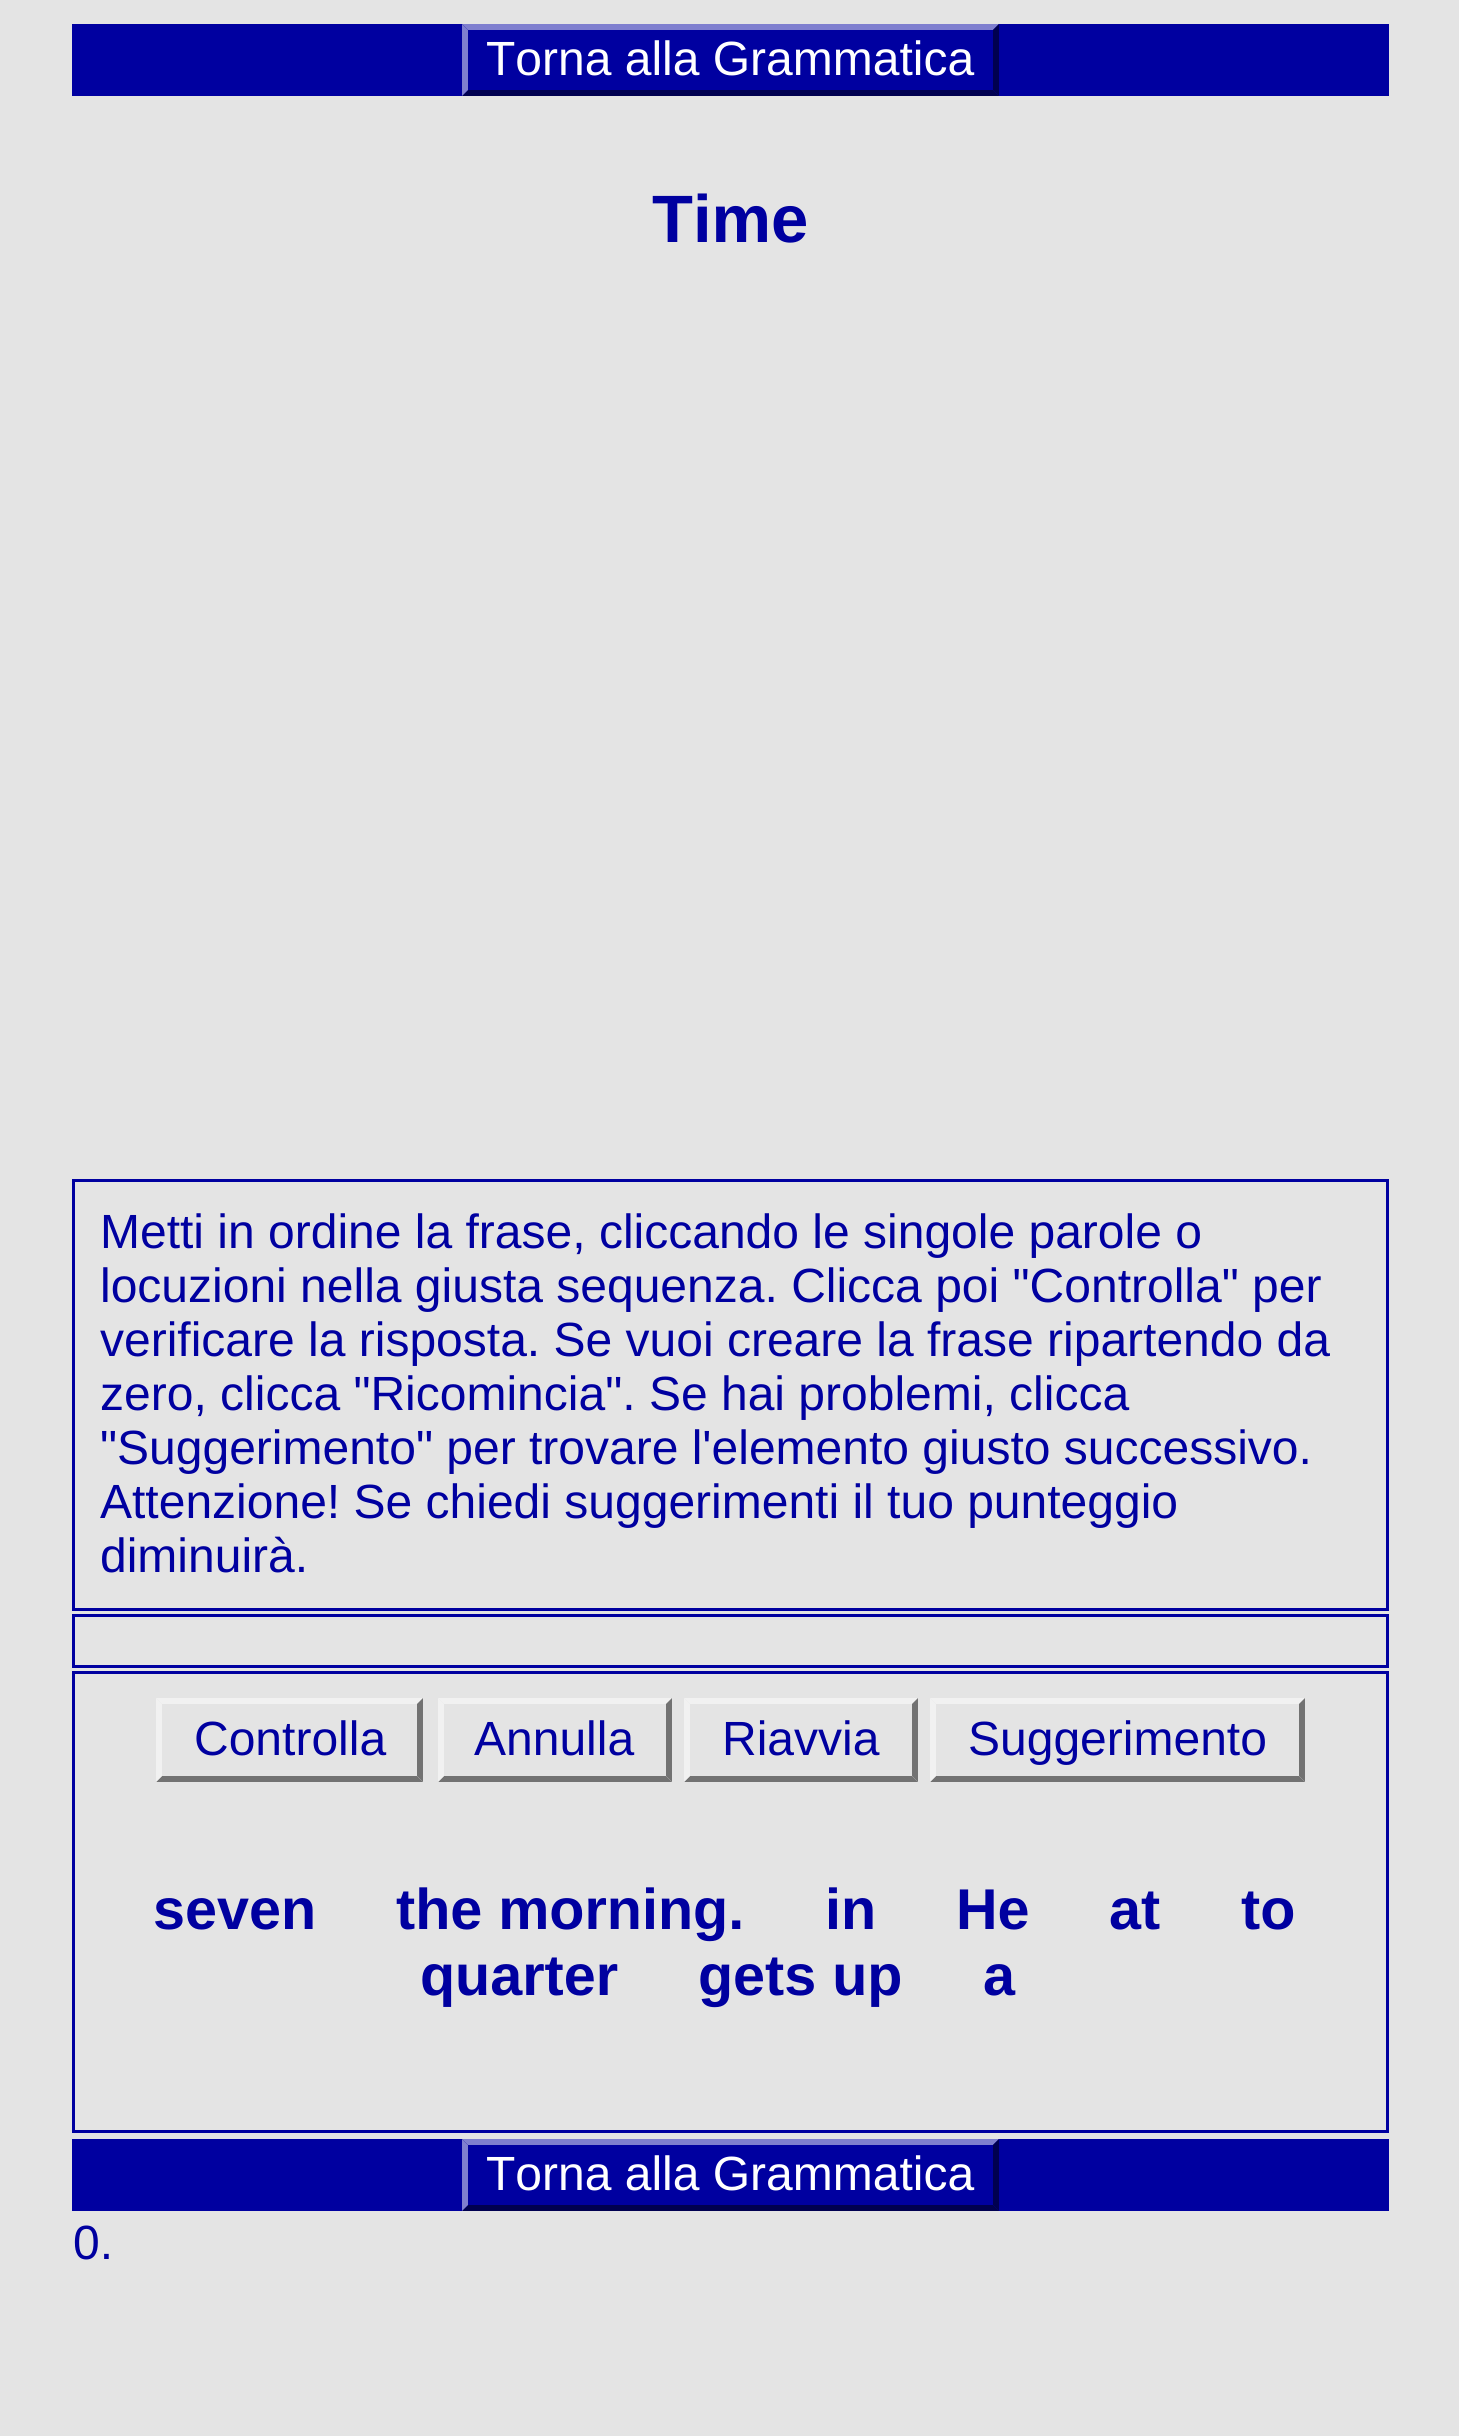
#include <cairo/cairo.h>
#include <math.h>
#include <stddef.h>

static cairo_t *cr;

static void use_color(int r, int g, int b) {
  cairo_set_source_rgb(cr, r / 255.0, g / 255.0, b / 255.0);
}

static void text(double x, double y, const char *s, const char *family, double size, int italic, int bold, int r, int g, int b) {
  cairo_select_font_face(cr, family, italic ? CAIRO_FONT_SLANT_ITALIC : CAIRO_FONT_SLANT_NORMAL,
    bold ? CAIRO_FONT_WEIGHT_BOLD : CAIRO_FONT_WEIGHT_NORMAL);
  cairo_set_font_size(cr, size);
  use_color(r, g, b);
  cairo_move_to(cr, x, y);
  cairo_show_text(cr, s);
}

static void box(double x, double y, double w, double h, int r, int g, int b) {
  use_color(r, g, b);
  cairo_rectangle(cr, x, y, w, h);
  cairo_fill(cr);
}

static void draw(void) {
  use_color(228, 228, 228);
  cairo_paint(cr);
  box(72, 24, 1317, 72, 0, 0, 160);
  use_color(127, 127, 207);
  cairo_new_path(cr);
  cairo_move_to(cr, 462, 24);
  cairo_line_to(cr, 999, 24);
  cairo_line_to(cr, 993, 30);
  cairo_line_to(cr, 468, 30);
  cairo_close_path(cr);
  cairo_fill(cr);
  use_color(0, 0, 80);
  cairo_new_path(cr);
  cairo_move_to(cr, 999, 24);
  cairo_line_to(cr, 999, 96);
  cairo_line_to(cr, 993, 90);
  cairo_line_to(cr, 993, 30);
  cairo_close_path(cr);
  cairo_fill(cr);
  cairo_new_path(cr);
  cairo_move_to(cr, 999, 96);
  cairo_line_to(cr, 462, 96);
  cairo_line_to(cr, 468, 90);
  cairo_line_to(cr, 993, 90);
  cairo_close_path(cr);
  cairo_fill(cr);
  use_color(127, 127, 207);
  cairo_new_path(cr);
  cairo_move_to(cr, 462, 96);
  cairo_line_to(cr, 462, 24);
  cairo_line_to(cr, 468, 30);
  cairo_line_to(cr, 468, 90);
  cairo_close_path(cr);
  cairo_fill(cr);
  cairo_rectangle(cr, 73.5, 1180.5, 1314, 429);
  use_color(0, 0, 160);
  cairo_set_line_width(cr, 3);
  cairo_stroke(cr);
  cairo_rectangle(cr, 73.5, 1615.5, 1314, 51);
  cairo_stroke(cr);
  cairo_rectangle(cr, 73.5, 1672.5, 1314, 459);
  cairo_stroke(cr);
  use_color(241, 241, 241);
  cairo_new_path(cr);
  cairo_move_to(cr, 156, 1698);
  cairo_line_to(cr, 423, 1698);
  cairo_line_to(cr, 417, 1704);
  cairo_line_to(cr, 162, 1704);
  cairo_close_path(cr);
  cairo_fill(cr);
  use_color(114, 114, 114);
  cairo_new_path(cr);
  cairo_move_to(cr, 423, 1698);
  cairo_line_to(cr, 423, 1782);
  cairo_line_to(cr, 417, 1776);
  cairo_line_to(cr, 417, 1704);
  cairo_close_path(cr);
  cairo_fill(cr);
  cairo_new_path(cr);
  cairo_move_to(cr, 423, 1782);
  cairo_line_to(cr, 156, 1782);
  cairo_line_to(cr, 162, 1776);
  cairo_line_to(cr, 417, 1776);
  cairo_close_path(cr);
  cairo_fill(cr);
  use_color(241, 241, 241);
  cairo_new_path(cr);
  cairo_move_to(cr, 156, 1782);
  cairo_line_to(cr, 156, 1698);
  cairo_line_to(cr, 162, 1704);
  cairo_line_to(cr, 162, 1776);
  cairo_close_path(cr);
  cairo_fill(cr);
  cairo_new_path(cr);
  cairo_move_to(cr, 438, 1698);
  cairo_line_to(cr, 672, 1698);
  cairo_line_to(cr, 666, 1704);
  cairo_line_to(cr, 444, 1704);
  cairo_close_path(cr);
  cairo_fill(cr);
  use_color(114, 114, 114);
  cairo_new_path(cr);
  cairo_move_to(cr, 672, 1698);
  cairo_line_to(cr, 672, 1782);
  cairo_line_to(cr, 666, 1776);
  cairo_line_to(cr, 666, 1704);
  cairo_close_path(cr);
  cairo_fill(cr);
  cairo_new_path(cr);
  cairo_move_to(cr, 672, 1782);
  cairo_line_to(cr, 438, 1782);
  cairo_line_to(cr, 444, 1776);
  cairo_line_to(cr, 666, 1776);
  cairo_close_path(cr);
  cairo_fill(cr);
  use_color(241, 241, 241);
  cairo_new_path(cr);
  cairo_move_to(cr, 438, 1782);
  cairo_line_to(cr, 438, 1698);
  cairo_line_to(cr, 444, 1704);
  cairo_line_to(cr, 444, 1776);
  cairo_close_path(cr);
  cairo_fill(cr);
  cairo_new_path(cr);
  cairo_move_to(cr, 684, 1698);
  cairo_line_to(cr, 918, 1698);
  cairo_line_to(cr, 912, 1704);
  cairo_line_to(cr, 690, 1704);
  cairo_close_path(cr);
  cairo_fill(cr);
  use_color(114, 114, 114);
  cairo_new_path(cr);
  cairo_move_to(cr, 918, 1698);
  cairo_line_to(cr, 918, 1782);
  cairo_line_to(cr, 912, 1776);
  cairo_line_to(cr, 912, 1704);
  cairo_close_path(cr);
  cairo_fill(cr);
  cairo_new_path(cr);
  cairo_move_to(cr, 918, 1782);
  cairo_line_to(cr, 684, 1782);
  cairo_line_to(cr, 690, 1776);
  cairo_line_to(cr, 912, 1776);
  cairo_close_path(cr);
  cairo_fill(cr);
  use_color(241, 241, 241);
  cairo_new_path(cr);
  cairo_move_to(cr, 684, 1782);
  cairo_line_to(cr, 684, 1698);
  cairo_line_to(cr, 690, 1704);
  cairo_line_to(cr, 690, 1776);
  cairo_close_path(cr);
  cairo_fill(cr);
  cairo_new_path(cr);
  cairo_move_to(cr, 930, 1698);
  cairo_line_to(cr, 1305, 1698);
  cairo_line_to(cr, 1299, 1704);
  cairo_line_to(cr, 936, 1704);
  cairo_close_path(cr);
  cairo_fill(cr);
  use_color(114, 114, 114);
  cairo_new_path(cr);
  cairo_move_to(cr, 1305, 1698);
  cairo_line_to(cr, 1305, 1782);
  cairo_line_to(cr, 1299, 1776);
  cairo_line_to(cr, 1299, 1704);
  cairo_close_path(cr);
  cairo_fill(cr);
  cairo_new_path(cr);
  cairo_move_to(cr, 1305, 1782);
  cairo_line_to(cr, 930, 1782);
  cairo_line_to(cr, 936, 1776);
  cairo_line_to(cr, 1299, 1776);
  cairo_close_path(cr);
  cairo_fill(cr);
  use_color(241, 241, 241);
  cairo_new_path(cr);
  cairo_move_to(cr, 930, 1782);
  cairo_line_to(cr, 930, 1698);
  cairo_line_to(cr, 936, 1704);
  cairo_line_to(cr, 936, 1776);
  cairo_close_path(cr);
  cairo_fill(cr);
  box(72, 2139, 1317, 72, 0, 0, 160);
  use_color(127, 127, 207);
  cairo_new_path(cr);
  cairo_move_to(cr, 462, 2139);
  cairo_line_to(cr, 999, 2139);
  cairo_line_to(cr, 993, 2145);
  cairo_line_to(cr, 468, 2145);
  cairo_close_path(cr);
  cairo_fill(cr);
  use_color(0, 0, 80);
  cairo_new_path(cr);
  cairo_move_to(cr, 999, 2139);
  cairo_line_to(cr, 999, 2211);
  cairo_line_to(cr, 993, 2205);
  cairo_line_to(cr, 993, 2145);
  cairo_close_path(cr);
  cairo_fill(cr);
  cairo_new_path(cr);
  cairo_move_to(cr, 999, 2211);
  cairo_line_to(cr, 462, 2211);
  cairo_line_to(cr, 468, 2205);
  cairo_line_to(cr, 993, 2205);
  cairo_close_path(cr);
  cairo_fill(cr);
  use_color(127, 127, 207);
  cairo_new_path(cr);
  cairo_move_to(cr, 462, 2211);
  cairo_line_to(cr, 462, 2139);
  cairo_line_to(cr, 468, 2145);
  cairo_line_to(cr, 468, 2205);
  cairo_close_path(cr);
  cairo_fill(cr);
  text(486, 75, "Torna alla Grammatica", "Liberation Sans", 48, 0, 0, 255, 255, 255);
  text(652, 242, "Time", "Liberation Sans", 67, 0, 1, 0, 0, 160);
  text(100, 1248, "Metti in ordine la frase, cliccando le singole parole o", "Liberation Sans", 48, 0, 0, 0, 0, 160);
  text(100, 1302, "locuzioni nella giusta sequenza. Clicca poi \"Controlla\" per", "Liberation Sans", 48, 0, 0, 0, 0, 160);
  text(100, 1356, "verificare la risposta. Se vuoi creare la frase ripartendo da", "Liberation Sans", 48, 0, 0, 0, 0, 160);
  text(100, 1410, "zero, clicca \"Ricomincia\". Se hai problemi, clicca", "Liberation Sans", 48, 0, 0, 0, 0, 160);
  text(100, 1464, "\"Suggerimento\" per trovare l'elemento giusto successivo.", "Liberation Sans", 48, 0, 0, 0, 0, 160);
  text(100, 1518, "Attenzione! Se chiedi suggerimenti il tuo punteggio", "Liberation Sans", 48, 0, 0, 0, 0, 160);
  text(100, 1572, "diminuirà.", "Liberation Sans", 48, 0, 0, 0, 0, 160);
  text(194, 1755, "Controlla", "Liberation Sans", 48, 0, 0, 0, 0, 160);
  text(474, 1755, "Annulla", "Liberation Sans", 48, 0, 0, 0, 0, 160);
  text(722, 1755, "Riavvia", "Liberation Sans", 48, 0, 0, 0, 0, 160);
  text(968, 1755, "Suggerimento", "Liberation Sans", 48, 0, 0, 0, 0, 160);
  text(153, 1929, "seven", "Liberation Sans", 57.5, 0, 1, 0, 0, 160);
  text(396, 1929, "the morning.", "Liberation Sans", 57.5, 0, 1, 0, 0, 160);
  text(825, 1929, "in", "Liberation Sans", 57.5, 0, 1, 0, 0, 160);
  text(956, 1929, "He", "Liberation Sans", 57.5, 0, 1, 0, 0, 160);
  text(1109, 1929, "at", "Liberation Sans", 57.5, 0, 1, 0, 0, 160);
  text(1241, 1929, "to", "Liberation Sans", 57.5, 0, 1, 0, 0, 160);
  text(420, 1995, "quarter", "Liberation Sans", 57.5, 0, 1, 0, 0, 160);
  text(698, 1995, "gets up", "Liberation Sans", 57.5, 0, 1, 0, 0, 160);
  text(983, 1995, "a", "Liberation Sans", 57.5, 0, 1, 0, 0, 160);
  text(486, 2190, "Torna alla Grammatica", "Liberation Sans", 48, 0, 0, 255, 255, 255);
  text(73, 2259, "0.", "Liberation Sans", 48, 0, 0, 0, 0, 160);
}

int main(void) {
  cairo_surface_t *surface = cairo_image_surface_create(CAIRO_FORMAT_RGB24, 1459, 2436);
  cr = cairo_create(surface);
  cairo_font_options_t *options = cairo_font_options_create();
  cairo_font_options_set_hint_metrics(options, CAIRO_HINT_METRICS_OFF);
  cairo_font_options_set_hint_style(options, CAIRO_HINT_STYLE_NONE);
  cairo_set_font_options(cr, options);
  cairo_set_miter_limit(cr, 4);
  draw();
  cairo_surface_write_to_png(surface, "out.png");
  cairo_font_options_destroy(options);
  cairo_destroy(cr);
  cairo_surface_destroy(surface);
  return 0;
}
